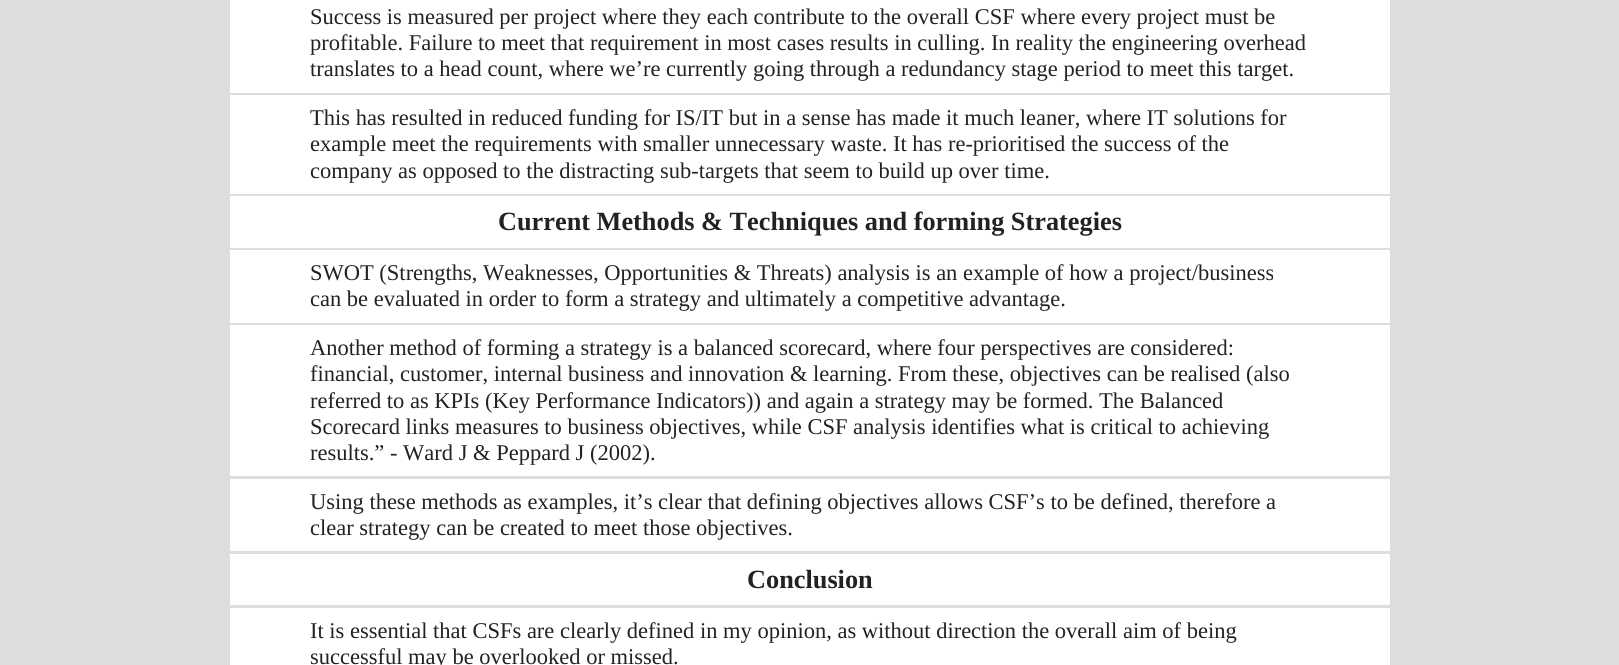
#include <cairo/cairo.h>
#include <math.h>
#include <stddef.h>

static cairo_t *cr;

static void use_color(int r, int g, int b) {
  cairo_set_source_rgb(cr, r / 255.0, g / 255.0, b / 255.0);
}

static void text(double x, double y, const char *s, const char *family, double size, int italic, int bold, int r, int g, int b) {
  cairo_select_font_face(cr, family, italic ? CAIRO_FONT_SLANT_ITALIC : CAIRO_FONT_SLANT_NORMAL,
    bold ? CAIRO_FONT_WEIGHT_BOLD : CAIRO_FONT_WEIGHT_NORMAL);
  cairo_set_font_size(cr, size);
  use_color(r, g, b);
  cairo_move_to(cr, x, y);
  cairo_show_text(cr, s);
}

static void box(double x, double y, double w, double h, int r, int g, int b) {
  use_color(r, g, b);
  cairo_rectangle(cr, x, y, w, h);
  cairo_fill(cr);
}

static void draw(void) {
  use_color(221, 221, 221);
  cairo_paint(cr);
  box(230, 0, 1160, 93, 255, 255, 255);
  box(230, 95, 1160, 99, 255, 255, 255);
  box(230, 196, 1160, 52, 255, 255, 255);
  box(230, 250, 1160, 73, 255, 255, 255);
  box(230, 325, 1160, 151, 255, 255, 255);
  box(230, 479, 1160, 72, 255, 255, 255);
  box(230, 554, 1160, 51, 255, 255, 255);
  box(230, 608, 1160, 57, 255, 255, 255);
  text(310, 24, "Success is measured per project where they each contribute to the overall CSF where every project must be", "Liberation Serif", 22.5, 0, 0, 34, 34, 34);
  text(310, 50, "profitable. Failure to meet that requirement in most cases results in culling. In reality the engineering overhead", "Liberation Serif", 22.5, 0, 0, 34, 34, 34);
  text(310, 76, "translates to a head count, where we’re currently going through a redundancy stage period to meet this target.", "Liberation Serif", 22.5, 0, 0, 34, 34, 34);
  text(310, 125, "This has resulted in reduced funding for IS/IT but in a sense has made it much leaner, where IT solutions for", "Liberation Serif", 22.5, 0, 0, 34, 34, 34);
  text(310, 151, "example meet the requirements with smaller unnecessary waste. It has re-prioritised the success of the", "Liberation Serif", 22.5, 0, 0, 34, 34, 34);
  text(310, 178, "company as opposed to the distracting sub-targets that seem to build up over time.", "Liberation Serif", 22.5, 0, 0, 34, 34, 34);
  text(498, 230, "Current Methods & Techniques and forming Strategies", "Liberation Serif", 26.3, 0, 1, 34, 34, 34);
  text(310, 280, "SWOT (Strengths, Weaknesses, Opportunities & Threats) analysis is an example of how a project/business", "Liberation Serif", 22.5, 0, 0, 34, 34, 34);
  text(310, 306, "can be evaluated in order to form a strategy and ultimately a competitive advantage.", "Liberation Serif", 22.5, 0, 0, 34, 34, 34);
  text(310, 355, "Another method of forming a strategy is a balanced scorecard, where four perspectives are considered:", "Liberation Serif", 22.5, 0, 0, 34, 34, 34);
  text(310, 381, "financial, customer, internal business and innovation & learning. From these, objectives can be realised (also", "Liberation Serif", 22.5, 0, 0, 34, 34, 34);
  text(310, 408, "referred to as KPIs (Key Performance Indicators)) and again a strategy may be formed. The Balanced", "Liberation Serif", 22.5, 0, 0, 34, 34, 34);
  text(310, 434, "Scorecard links measures to business objectives, while CSF analysis identifies what is critical to achieving", "Liberation Serif", 22.5, 0, 0, 34, 34, 34);
  text(310, 460, "results.” - Ward J & Peppard J (2002).", "Liberation Serif", 22.5, 0, 0, 34, 34, 34);
  text(310, 509, "Using these methods as examples, it’s clear that defining objectives allows CSF’s to be defined, therefore a", "Liberation Serif", 22.5, 0, 0, 34, 34, 34);
  text(310, 535, "clear strategy can be created to meet those objectives.", "Liberation Serif", 22.5, 0, 0, 34, 34, 34);
  text(747, 588, "Conclusion", "Liberation Serif", 26.3, 0, 1, 34, 34, 34);
  text(310, 638, "It is essential that CSFs are clearly defined in my opinion, as without direction the overall aim of being", "Liberation Serif", 22.5, 0, 0, 34, 34, 34);
  text(310, 664, "successful may be overlooked or missed.", "Liberation Serif", 22.5, 0, 0, 34, 34, 34);
}

int main(void) {
  cairo_surface_t *surface = cairo_image_surface_create(CAIRO_FORMAT_RGB24, 1619, 665);
  cr = cairo_create(surface);
  cairo_font_options_t *options = cairo_font_options_create();
  cairo_font_options_set_hint_metrics(options, CAIRO_HINT_METRICS_OFF);
  cairo_font_options_set_hint_style(options, CAIRO_HINT_STYLE_NONE);
  cairo_set_font_options(cr, options);
  cairo_set_miter_limit(cr, 4);
  draw();
  cairo_surface_write_to_png(surface, "out.png");
  cairo_font_options_destroy(options);
  cairo_destroy(cr);
  cairo_surface_destroy(surface);
  return 0;
}
